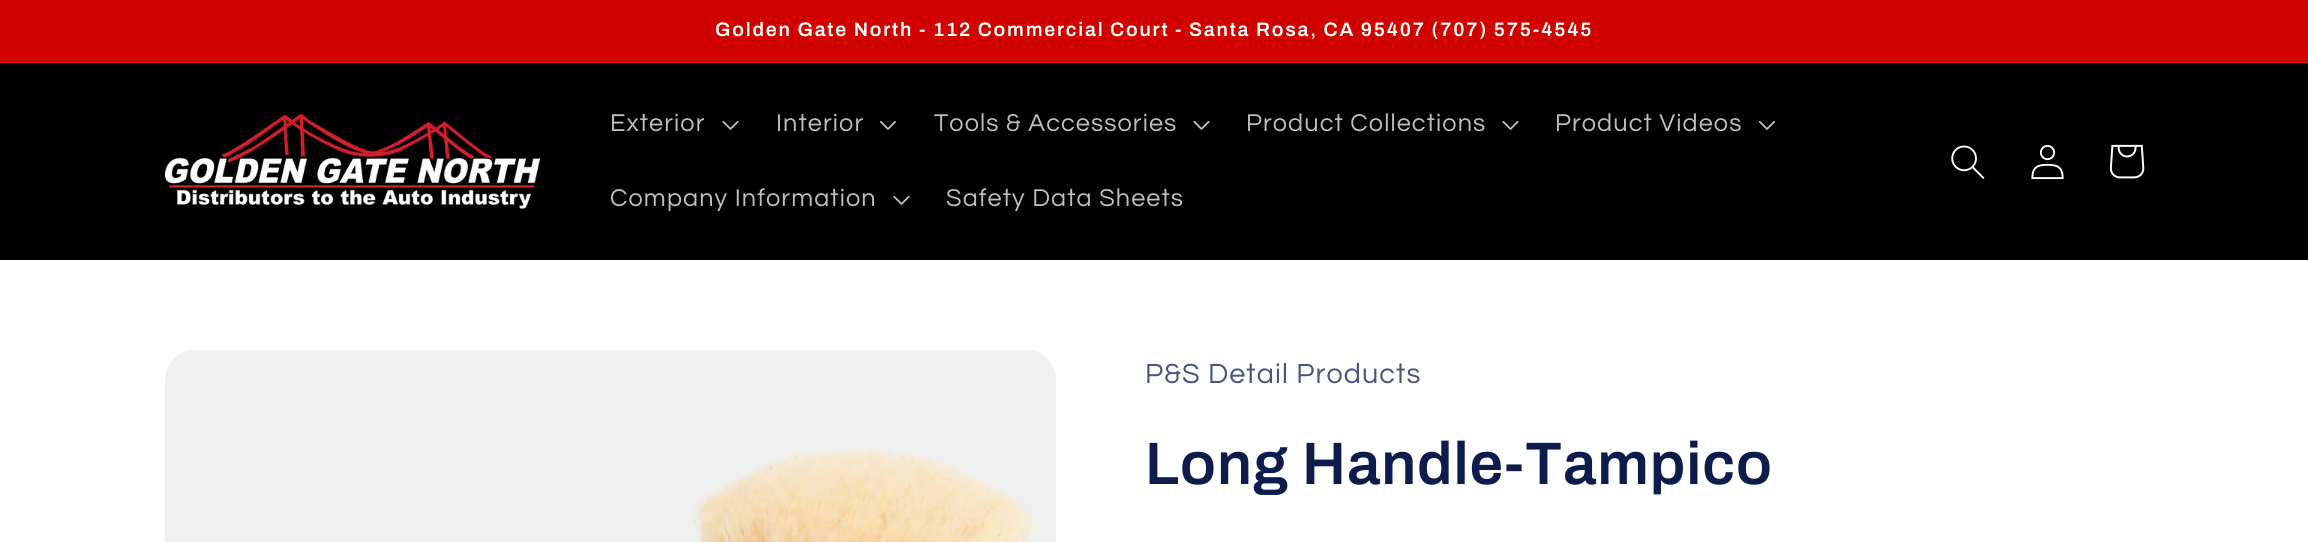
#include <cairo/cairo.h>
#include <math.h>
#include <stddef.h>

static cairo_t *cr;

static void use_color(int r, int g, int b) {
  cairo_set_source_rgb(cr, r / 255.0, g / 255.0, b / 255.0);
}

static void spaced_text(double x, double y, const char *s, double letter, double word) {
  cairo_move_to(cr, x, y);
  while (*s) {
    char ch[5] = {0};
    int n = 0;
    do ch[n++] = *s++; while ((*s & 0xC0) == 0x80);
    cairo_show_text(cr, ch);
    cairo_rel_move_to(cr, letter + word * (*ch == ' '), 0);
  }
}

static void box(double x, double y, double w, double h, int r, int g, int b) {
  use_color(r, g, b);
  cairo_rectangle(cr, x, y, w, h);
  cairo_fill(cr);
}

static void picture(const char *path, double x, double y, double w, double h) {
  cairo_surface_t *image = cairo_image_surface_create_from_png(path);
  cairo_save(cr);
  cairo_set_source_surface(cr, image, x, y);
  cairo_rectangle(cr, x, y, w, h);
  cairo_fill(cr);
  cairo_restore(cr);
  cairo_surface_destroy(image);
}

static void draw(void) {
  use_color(255, 255, 255);
  cairo_paint(cr);
  box(0, 0, 2308, 62, 208, 3, 0);
  box(0, 62, 2308, 1, 212, 23, 20);
  box(0, 64, 2308, 196, 0, 0, 0);
  box(0, 63, 2308, 1, 20, 20, 20);
  picture("img_01.png", 165, 114, 375, 95);
  picture("img_02.png", 722, 121, 17, 9);
  picture("img_03.png", 880, 121, 16, 9);
  picture("img_02.png", 1193, 121, 17, 9);
  picture("img_02.png", 1502, 121, 17, 9);
  picture("img_03.png", 1759, 121, 16, 9);
  picture("img_02.png", 893, 196, 17, 9);
  picture("img_04.png", 1951, 145, 34, 34);
  picture("img_05.png", 2031, 144, 33, 36);
  picture("img_06.png", 2109, 144, 36, 35);
  picture("img_07.png", 165, 350, 891, 192);
  cairo_select_font_face(cr, "Archivo SemiBold", CAIRO_FONT_SLANT_NORMAL, CAIRO_FONT_WEIGHT_NORMAL);
  cairo_set_font_size(cr, 19.5);
  use_color(255, 255, 255);
  spaced_text(715, 36, "Golden Gate North - 112 Commercial Court - Santa Rosa, CA 95407 (707) 575-4545", 1.8, 0);
  cairo_select_font_face(cr, "Questrial", CAIRO_FONT_SLANT_NORMAL, CAIRO_FONT_WEIGHT_NORMAL);
  cairo_set_font_size(cr, 25.25);
  use_color(191, 191, 191);
  spaced_text(610, 131, "Exterior", 1.1, 0);
  spaced_text(776, 131, "Interior", 1.1, 0);
  spaced_text(934, 131, "Tools & Accessories", 1.1, 0);
  spaced_text(1246, 131, "Product Collections", 1.1, 0);
  spaced_text(1555, 131, "Product Videos", 1.1, 0);
  spaced_text(610, 206, "Company Information", 1.1, 0);
  spaced_text(946, 206, "Safety Data Sheets", 1.1, 0);
  cairo_set_font_size(cr, 28.75);
  use_color(74, 84, 122);
  spaced_text(1145, 383, "P&S Detail Products", 1.1, 0);
  cairo_select_font_face(cr, "Archivo SemiBold", CAIRO_FONT_SLANT_NORMAL, CAIRO_FONT_WEIGHT_NORMAL);
  cairo_set_font_size(cr, 60);
  use_color(14, 27, 77);
  spaced_text(1145, 484, "Long Handle-Tampico", 0.9, 0);
}

int main(void) {
  cairo_surface_t *surface = cairo_image_surface_create(CAIRO_FORMAT_RGB24, 2308, 542);
  cr = cairo_create(surface);
  cairo_font_options_t *options = cairo_font_options_create();
  cairo_font_options_set_hint_metrics(options, CAIRO_HINT_METRICS_OFF);
  cairo_font_options_set_hint_style(options, CAIRO_HINT_STYLE_NONE);
  cairo_set_font_options(cr, options);
  cairo_set_miter_limit(cr, 4);
  draw();
  cairo_surface_write_to_png(surface, "out.png");
  cairo_font_options_destroy(options);
  cairo_destroy(cr);
  cairo_surface_destroy(surface);
  return 0;
}
